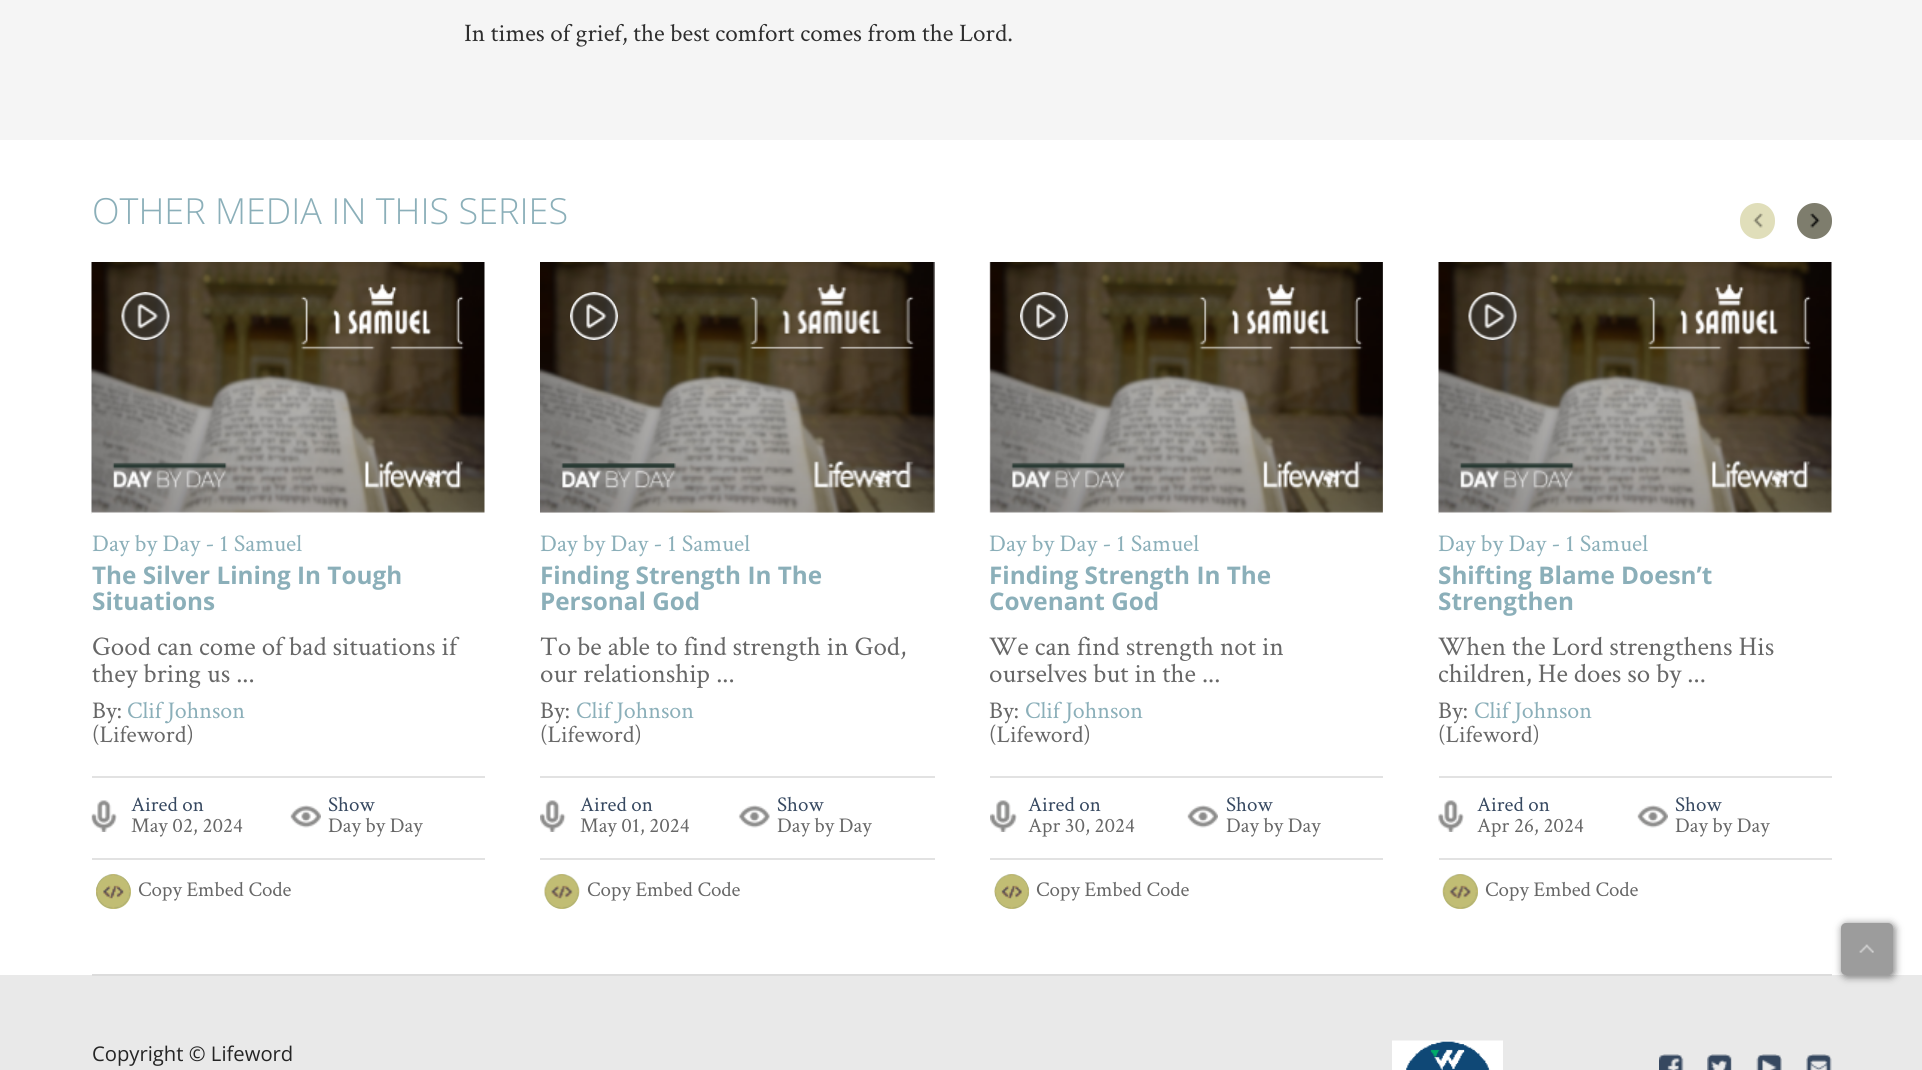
#include <cairo/cairo.h>
#include <math.h>
#include <stddef.h>

static cairo_t *cr;

static void use_color(int r, int g, int b) {
  cairo_set_source_rgb(cr, r / 255.0, g / 255.0, b / 255.0);
}

static void text(double x, double y, const char *s, const char *family, double size, int italic, int bold, int r, int g, int b) {
  cairo_select_font_face(cr, family, italic ? CAIRO_FONT_SLANT_ITALIC : CAIRO_FONT_SLANT_NORMAL,
    bold ? CAIRO_FONT_WEIGHT_BOLD : CAIRO_FONT_WEIGHT_NORMAL);
  cairo_set_font_size(cr, size);
  use_color(r, g, b);
  cairo_move_to(cr, x, y);
  cairo_show_text(cr, s);
}

static void box(double x, double y, double w, double h, int r, int g, int b) {
  use_color(r, g, b);
  cairo_rectangle(cr, x, y, w, h);
  cairo_fill(cr);
}

static void round_rect(double x, double y, double w, double h, double r) {
  cairo_new_sub_path(cr);
  cairo_arc(cr, x + w - r, y + h - r, r, 0, M_PI / 2);
  cairo_arc(cr, x + r, y + h - r, r, M_PI / 2, M_PI);
  cairo_arc(cr, x + r, y + r, r, M_PI, 1.5 * M_PI);
  cairo_arc(cr, x + w - r, y + r, r, 1.5 * M_PI, 2 * M_PI);
  cairo_close_path(cr);
}

static void shadow(double x, double y, double w, double h, double r, double blur, double alpha) {
  cairo_push_group_with_content(cr, CAIRO_CONTENT_ALPHA);
  cairo_set_operator(cr, CAIRO_OPERATOR_SOURCE);
  for (int i = 15; i >= -15 && fmin(w, h) + blur * i / 3 > 0; i -= 2) {
    double e = blur * i / 6;
    cairo_set_source_rgba(cr, 0, 0, 0, alpha * erfc((i - 1) / 8.5) / 2);
    round_rect(x - e, y - e, w + 2 * e, h + 2 * e, fmax(0, fmin(r + e + blur * .6, fmin(w, h) / 2 + e)));
    cairo_fill(cr);
  }
  cairo_pattern_t *soft = cairo_pop_group(cr);
  cairo_mask(cr, soft);
  cairo_pattern_destroy(soft);
}

static void picture(const char *path, double x, double y, double w, double h) {
  cairo_surface_t *image = cairo_image_surface_create_from_png(path);
  cairo_save(cr);
  cairo_set_source_surface(cr, image, x, y);
  cairo_rectangle(cr, x, y, w, h);
  cairo_fill(cr);
  cairo_restore(cr);
  cairo_surface_destroy(image);
}

static void draw(void) {
  use_color(233, 233, 233);
  cairo_paint(cr);
  box(0, 0, 1922, 140, 245, 245, 245);
  box(0, 140, 1922, 835, 255, 255, 255);
  box(92, 974, 1740, 2, 220, 220, 220);
  use_color(224, 222, 186);
  round_rect(1740, 203, 35, 36, 17.5);
  cairo_fill(cr);
  picture("img_01.png", 1753, 213, 10, 15);
  use_color(126, 125, 109);
  round_rect(1797, 203, 35, 36, 17.5);
  cairo_fill(cr);
  picture("img_02.png", 1810, 213, 10, 15);
  picture("img_03.png", 91, 262, 394, 252);
  cairo_set_source_rgba(cr, 0.18, 0.18, 0.18, 0.5);
  cairo_arc(cr, 146, 317, 24, 0, 2 * M_PI);
  cairo_fill(cr);
  picture("img_04.png", 121, 292, 49, 48);
  box(92, 513, 393, 1, 255, 255, 255);
  box(92, 776, 393, 2, 226, 226, 226);
  box(92, 858, 393, 2, 226, 226, 226);
  picture("img_05.png", 91, 800, 26, 32);
  picture("img_06.png", 290, 805, 31, 23);
  use_color(193, 189, 116);
  round_rect(96, 875, 35, 34, 17);
  cairo_fill(cr);
  picture("img_07.png", 96, 874, 35, 35);
  picture("img_08.png", 540, 262, 395, 251);
  cairo_set_source_rgba(cr, 0.18, 0.18, 0.18, 0.5);
  cairo_arc(cr, 594, 317, 24, 0, 2 * M_PI);
  cairo_fill(cr);
  picture("img_09.png", 570, 292, 48, 48);
  box(540, 776, 395, 2, 226, 226, 226);
  box(540, 858, 395, 2, 226, 226, 226);
  picture("img_10.png", 540, 800, 26, 32);
  picture("img_11.png", 738, 805, 32, 23);
  use_color(193, 189, 116);
  cairo_arc(cr, 562, 892, 17, 0, 2 * M_PI);
  cairo_fill(cr);
  picture("img_12.png", 544, 874, 36, 35);
  picture("img_13.png", 989, 262, 394, 251);
  cairo_set_source_rgba(cr, 0.18, 0.18, 0.18, 0.5);
  cairo_arc(cr, 1044, 317, 24, 0, 2 * M_PI);
  cairo_fill(cr);
  picture("img_14.png", 1020, 292, 48, 48);
  box(990, 776, 393, 2, 226, 226, 226);
  box(990, 858, 393, 2, 226, 226, 226);
  picture("img_15.png", 990, 800, 27, 32);
  picture("img_06.png", 1187, 805, 31, 23);
  use_color(193, 189, 116);
  cairo_arc(cr, 1012, 892, 17, 0, 2 * M_PI);
  cairo_fill(cr);
  picture("img_16.png", 994, 874, 35, 35);
  picture("img_17.png", 1438, 262, 394, 252);
  cairo_set_source_rgba(cr, 0.18, 0.18, 0.18, 0.5);
  cairo_arc(cr, 1493, 317, 24, 0, 2 * M_PI);
  cairo_fill(cr);
  picture("img_18.png", 1468, 292, 49, 48);
  box(1439, 513, 393, 1, 255, 255, 255);
  box(1439, 776, 393, 2, 226, 226, 226);
  box(1439, 858, 393, 2, 226, 226, 226);
  picture("img_19.png", 1438, 800, 26, 32);
  picture("img_20.png", 1637, 805, 31, 23);
  use_color(193, 189, 116);
  round_rect(1443, 875, 35, 34, 17);
  cairo_fill(cr);
  picture("img_21.png", 1442, 874, 36, 35);
  use_color(0, 0, 0);
  shadow(1842, 924, 53, 53, 5, 4, 0.5);
  use_color(156, 156, 156);
  round_rect(1841, 923, 52, 52, 5);
  cairo_fill(cr);
  picture("img_22.png", 1859, 944, 15, 9);
  picture("img_23.png", 1392, 1040, 111, 30);
  picture("img_24.png", 1659, 1054, 25, 16);
  picture("img_25.png", 1707, 1054, 25, 16);
  picture("img_26.png", 1756, 1054, 26, 16);
  picture("img_27.png", 1806, 1054, 26, 16);
  text(464, 41, "In times of grief, the best comfort comes from the Lord.", "Crimson Text", 25.2, 0, 0, 46, 46, 46);
  text(92, 224, "OTHER MEDIA IN THIS SERIES", "Open Sans Light", 36, 0, 0, 139, 175, 185);
  text(92, 551, "Day by Day - 1 Samuel", "Crimson Text", 24, 0, 0, 139, 175, 185);
  text(92, 584, "The Silver Lining In Tough", "Open Sans", 24.3, 0, 1, 139, 175, 185);
  text(92, 610, "Situations", "Open Sans", 24.3, 0, 1, 139, 175, 185);
  text(92, 655, "Good can come of bad situations if", "Crimson Text", 27, 0, 0, 103, 103, 103);
  text(92, 682, "they bring us ...", "Crimson Text", 27, 0, 0, 103, 103, 103);
  text(92, 718, "By:", "Crimson Text", 24, 0, 0, 103, 103, 103);
  text(127, 718, "Clif Johnson", "Crimson Text", 24, 0, 0, 139, 175, 185);
  text(92, 742, "(Lifeword)", "Crimson Text", 24, 0, 0, 103, 103, 103);
  text(131, 811, "Aired on", "Crimson Text", 21, 0, 0, 54, 72, 96);
  text(131, 832, "May 02, 2024", "Crimson Text", 21, 0, 0, 103, 103, 103);
  text(328, 811, "Show", "Crimson Text", 21, 0, 0, 54, 72, 96);
  text(328, 832, "Day by Day", "Crimson Text", 21, 0, 0, 103, 103, 103);
  text(138, 896, "Copy Embed Code", "Crimson Text", 21, 0, 0, 103, 103, 103);
  text(540, 551, "Day by Day - 1 Samuel", "Crimson Text", 24, 0, 0, 139, 175, 185);
  text(540, 584, "Finding Strength In The", "Open Sans", 24.3, 0, 1, 139, 175, 185);
  text(540, 610, "Personal God", "Open Sans", 24.3, 0, 1, 139, 175, 185);
  text(540, 655, "To be able to find strength in God,", "Crimson Text", 27, 0, 0, 103, 103, 103);
  text(540, 682, "our relationship ...", "Crimson Text", 27, 0, 0, 103, 103, 103);
  text(540, 718, "By:", "Crimson Text", 24, 0, 0, 103, 103, 103);
  text(576, 718, "Clif Johnson", "Crimson Text", 24, 0, 0, 139, 175, 185);
  text(540, 742, "(Lifeword)", "Crimson Text", 24, 0, 0, 103, 103, 103);
  text(580, 811, "Aired on", "Crimson Text", 21, 0, 0, 54, 72, 96);
  text(580, 832, "May 01, 2024", "Crimson Text", 21, 0, 0, 103, 103, 103);
  text(777, 811, "Show", "Crimson Text", 21, 0, 0, 54, 72, 96);
  text(777, 832, "Day by Day", "Crimson Text", 21, 0, 0, 103, 103, 103);
  text(587, 896, "Copy Embed Code", "Crimson Text", 21, 0, 0, 103, 103, 103);
  text(989, 551, "Day by Day - 1 Samuel", "Crimson Text", 24, 0, 0, 139, 175, 185);
  text(989, 584, "Finding Strength In The", "Open Sans", 24.3, 0, 1, 139, 175, 185);
  text(989, 610, "Covenant God", "Open Sans", 24.3, 0, 1, 139, 175, 185);
  text(989, 655, "We can find strength not in", "Crimson Text", 27, 0, 0, 103, 103, 103);
  text(989, 682, "ourselves but in the ...", "Crimson Text", 27, 0, 0, 103, 103, 103);
  text(989, 718, "By:", "Crimson Text", 24, 0, 0, 103, 103, 103);
  text(1025, 718, "Clif Johnson", "Crimson Text", 24, 0, 0, 139, 175, 185);
  text(989, 742, "(Lifeword)", "Crimson Text", 24, 0, 0, 103, 103, 103);
  text(1028, 811, "Aired on", "Crimson Text", 21, 0, 0, 54, 72, 96);
  text(1028, 832, "Apr 30, 2024", "Crimson Text", 21, 0, 0, 103, 103, 103);
  text(1226, 811, "Show", "Crimson Text", 21, 0, 0, 54, 72, 96);
  text(1226, 832, "Day by Day", "Crimson Text", 21, 0, 0, 103, 103, 103);
  text(1036, 896, "Copy Embed Code", "Crimson Text", 21, 0, 0, 103, 103, 103);
  text(1438, 551, "Day by Day - 1 Samuel", "Crimson Text", 24, 0, 0, 139, 175, 185);
  text(1438, 584, "Shifting Blame Doesn’t", "Open Sans", 24.3, 0, 1, 139, 175, 185);
  text(1438, 610, "Strengthen", "Open Sans", 24.3, 0, 1, 139, 175, 185);
  text(1438, 655, "When the Lord strengthens His", "Crimson Text", 27, 0, 0, 103, 103, 103);
  text(1438, 682, "children, He does so by ...", "Crimson Text", 27, 0, 0, 103, 103, 103);
  text(1438, 718, "By:", "Crimson Text", 24, 0, 0, 103, 103, 103);
  text(1474, 718, "Clif Johnson", "Crimson Text", 24, 0, 0, 139, 175, 185);
  text(1438, 742, "(Lifeword)", "Crimson Text", 24, 0, 0, 103, 103, 103);
  text(1477, 811, "Aired on", "Crimson Text", 21, 0, 0, 54, 72, 96);
  text(1477, 832, "Apr 26, 2024", "Crimson Text", 21, 0, 0, 103, 103, 103);
  text(1675, 811, "Show", "Crimson Text", 21, 0, 0, 54, 72, 96);
  text(1675, 832, "Day by Day", "Crimson Text", 21, 0, 0, 103, 103, 103);
  text(1485, 896, "Copy Embed Code", "Crimson Text", 21, 0, 0, 103, 103, 103);
  text(92, 1061, "Copyright © Lifeword", "Open Sans", 20.25, 0, 0, 37, 37, 37);
}

int main(void) {
  cairo_surface_t *surface = cairo_image_surface_create(CAIRO_FORMAT_RGB24, 1922, 1070);
  cr = cairo_create(surface);
  cairo_font_options_t *options = cairo_font_options_create();
  cairo_font_options_set_hint_metrics(options, CAIRO_HINT_METRICS_OFF);
  cairo_font_options_set_hint_style(options, CAIRO_HINT_STYLE_NONE);
  cairo_set_font_options(cr, options);
  cairo_set_miter_limit(cr, 4);
  draw();
  cairo_surface_write_to_png(surface, "out.png");
  cairo_font_options_destroy(options);
  cairo_destroy(cr);
  cairo_surface_destroy(surface);
  return 0;
}
